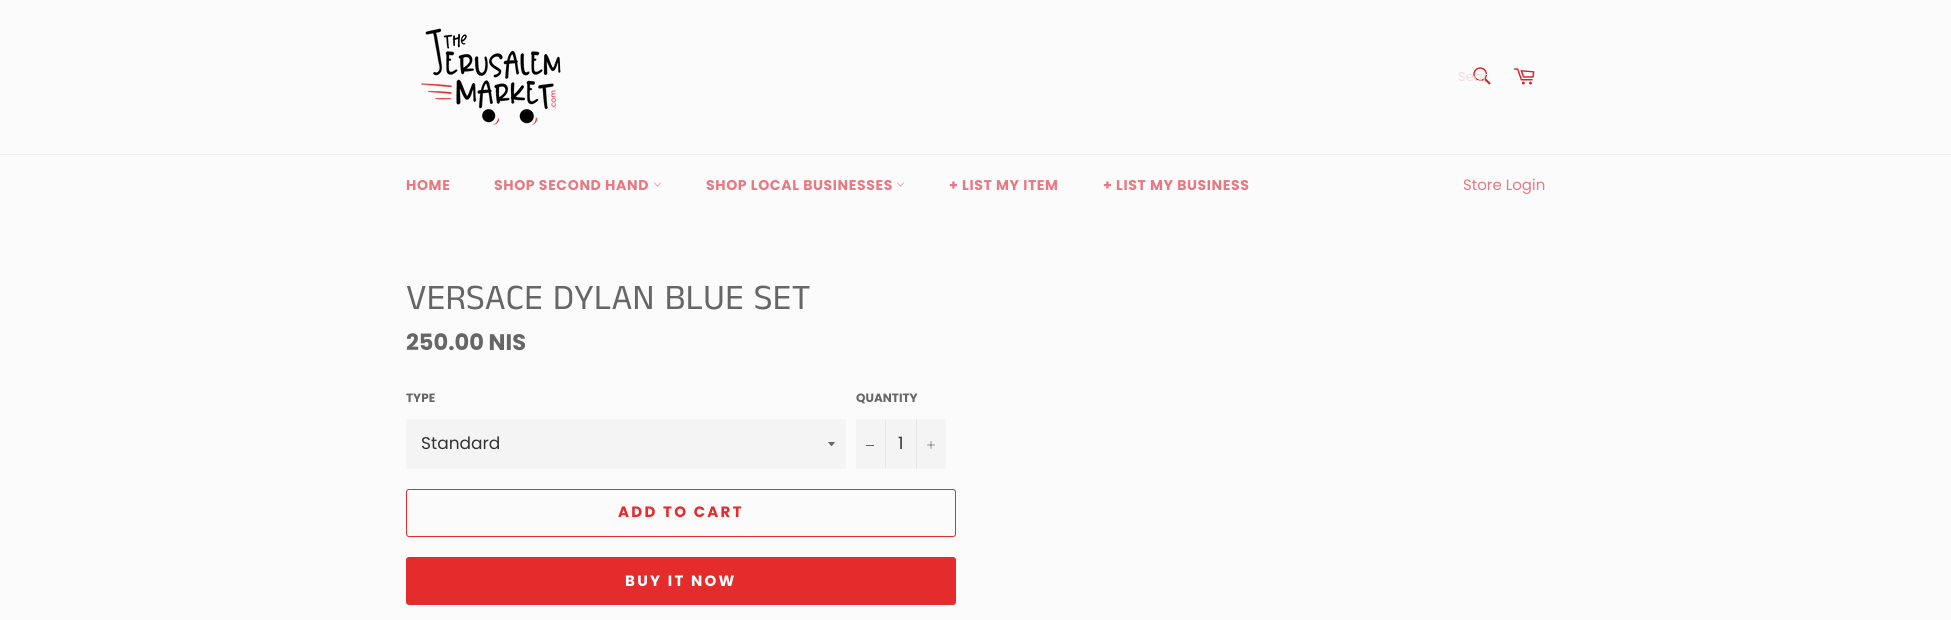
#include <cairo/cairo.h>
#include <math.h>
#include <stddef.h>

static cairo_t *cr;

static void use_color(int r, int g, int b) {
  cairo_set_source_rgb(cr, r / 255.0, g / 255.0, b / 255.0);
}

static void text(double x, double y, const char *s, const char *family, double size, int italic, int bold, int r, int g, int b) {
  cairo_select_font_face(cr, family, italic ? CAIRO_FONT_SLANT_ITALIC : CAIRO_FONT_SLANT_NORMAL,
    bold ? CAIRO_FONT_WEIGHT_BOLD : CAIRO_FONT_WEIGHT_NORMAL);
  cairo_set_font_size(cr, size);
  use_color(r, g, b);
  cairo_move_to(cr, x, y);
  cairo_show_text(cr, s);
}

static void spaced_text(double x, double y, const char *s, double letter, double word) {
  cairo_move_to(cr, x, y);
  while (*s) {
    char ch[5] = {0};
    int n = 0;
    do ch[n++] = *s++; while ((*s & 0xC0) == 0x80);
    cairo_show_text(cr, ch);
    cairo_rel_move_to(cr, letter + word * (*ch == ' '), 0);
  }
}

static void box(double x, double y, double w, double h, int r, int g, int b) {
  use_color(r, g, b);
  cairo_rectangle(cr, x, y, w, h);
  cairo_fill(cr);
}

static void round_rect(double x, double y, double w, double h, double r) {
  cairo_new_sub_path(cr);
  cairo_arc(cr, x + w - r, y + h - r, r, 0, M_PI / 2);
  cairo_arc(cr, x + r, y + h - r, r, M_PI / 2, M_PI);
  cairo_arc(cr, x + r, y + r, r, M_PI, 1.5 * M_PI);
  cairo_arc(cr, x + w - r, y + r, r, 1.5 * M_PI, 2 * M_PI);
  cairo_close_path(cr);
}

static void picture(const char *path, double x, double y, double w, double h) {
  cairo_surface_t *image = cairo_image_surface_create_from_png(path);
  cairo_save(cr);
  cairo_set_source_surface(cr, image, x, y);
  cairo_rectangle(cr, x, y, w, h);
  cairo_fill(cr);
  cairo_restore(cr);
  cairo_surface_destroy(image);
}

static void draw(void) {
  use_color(251, 251, 251);
  cairo_paint(cr);
  picture("img_01.png", 421, 28, 140, 97);
  picture("img_02.png", 1473, 67, 18, 18);
  picture("img_03.png", 1513, 68, 22, 17);
  box(0, 154, 1951, 1, 238, 238, 238);
  picture("img_04.png", 654, 182, 7, 5);
  picture("img_04.png", 897, 182, 7, 5);
  box(406, 419, 440, 50, 244, 244, 244);
  use_color(102, 102, 102);
  cairo_new_path(cr);
  cairo_move_to(cr, 828, 442);
  cairo_curve_to(cr, 832.5, 447.5, 830.5, 447.5, 835, 442);
  cairo_close_path(cr);
  cairo_fill(cr);
  box(856, 419, 90, 50, 244, 244, 244);
  box(885, 419, 1, 50, 231, 231, 231);
  box(866, 445, 8, 1, 102, 102, 102);
  box(916, 419, 1, 50, 231, 231, 231);
  picture("img_05.png", 927, 441, 8, 8);
  round_rect(406.5, 489.5, 549, 47, 2.5);
  use_color(227, 44, 43);
  cairo_set_line_width(cr, 1);
  cairo_stroke(cr);
  round_rect(406, 557, 550, 48, 3);
  cairo_fill(cr);
  text(1458, 81, "Sear", "Poppins", 13, 0, 0, 246, 220, 221);
  cairo_select_font_face(cr, "Poppins", CAIRO_FONT_SLANT_NORMAL, CAIRO_FONT_WEIGHT_BOLD);
  cairo_set_font_size(cr, 14.1);
  use_color(230, 121, 129);
  spaced_text(406, 190, "HOME", 0.6, 0);
  spaced_text(494, 190, "SHOP SECOND HAND", 0.6, 0);
  spaced_text(706, 190, "SHOP LOCAL BUSINESSES", 0.6, 0);
  spaced_text(949, 190, "+ LIST MY ITEM", 0.6, 0);
  spaced_text(1103, 190, "+ LIST MY BUSINESS", 0.6, 0);
  text(1463, 190, "Store Login", "Poppins", 15, 0, 0, 230, 121, 129);
  text(406, 309, "VERSACE DYLAN BLUE SET", "Anek Tamil", 36, 0, 0, 102, 102, 102);
  text(406, 350, "250.00 NIS", "Poppins", 22.5, 0, 1, 102, 102, 102);
  text(406, 402, "TYPE", "Poppins", 12, 0, 1, 102, 102, 102);
  text(421, 449, "Standard", "Poppins", 17, 0, 0, 51, 51, 51);
  text(856, 402, "QUANTITY", "Poppins", 12, 0, 1, 102, 102, 102);
  text(898, 449, "1", "Poppins", 17, 0, 0, 51, 51, 51);
  cairo_select_font_face(cr, "Poppins", CAIRO_FONT_SLANT_NORMAL, CAIRO_FONT_WEIGHT_BOLD);
  cairo_set_font_size(cr, 15);
  use_color(227, 44, 43);
  spaced_text(618, 517, "ADD TO CART", 2.25, 0);
  use_color(255, 255, 255);
  spaced_text(625, 586, "BUY IT NOW", 2.25, 0);
}

int main(void) {
  cairo_surface_t *surface = cairo_image_surface_create(CAIRO_FORMAT_RGB24, 1951, 620);
  cr = cairo_create(surface);
  cairo_font_options_t *options = cairo_font_options_create();
  cairo_font_options_set_hint_metrics(options, CAIRO_HINT_METRICS_OFF);
  cairo_font_options_set_hint_style(options, CAIRO_HINT_STYLE_NONE);
  cairo_set_font_options(cr, options);
  cairo_set_miter_limit(cr, 4);
  draw();
  cairo_surface_write_to_png(surface, "out.png");
  cairo_font_options_destroy(options);
  cairo_destroy(cr);
  cairo_surface_destroy(surface);
  return 0;
}
